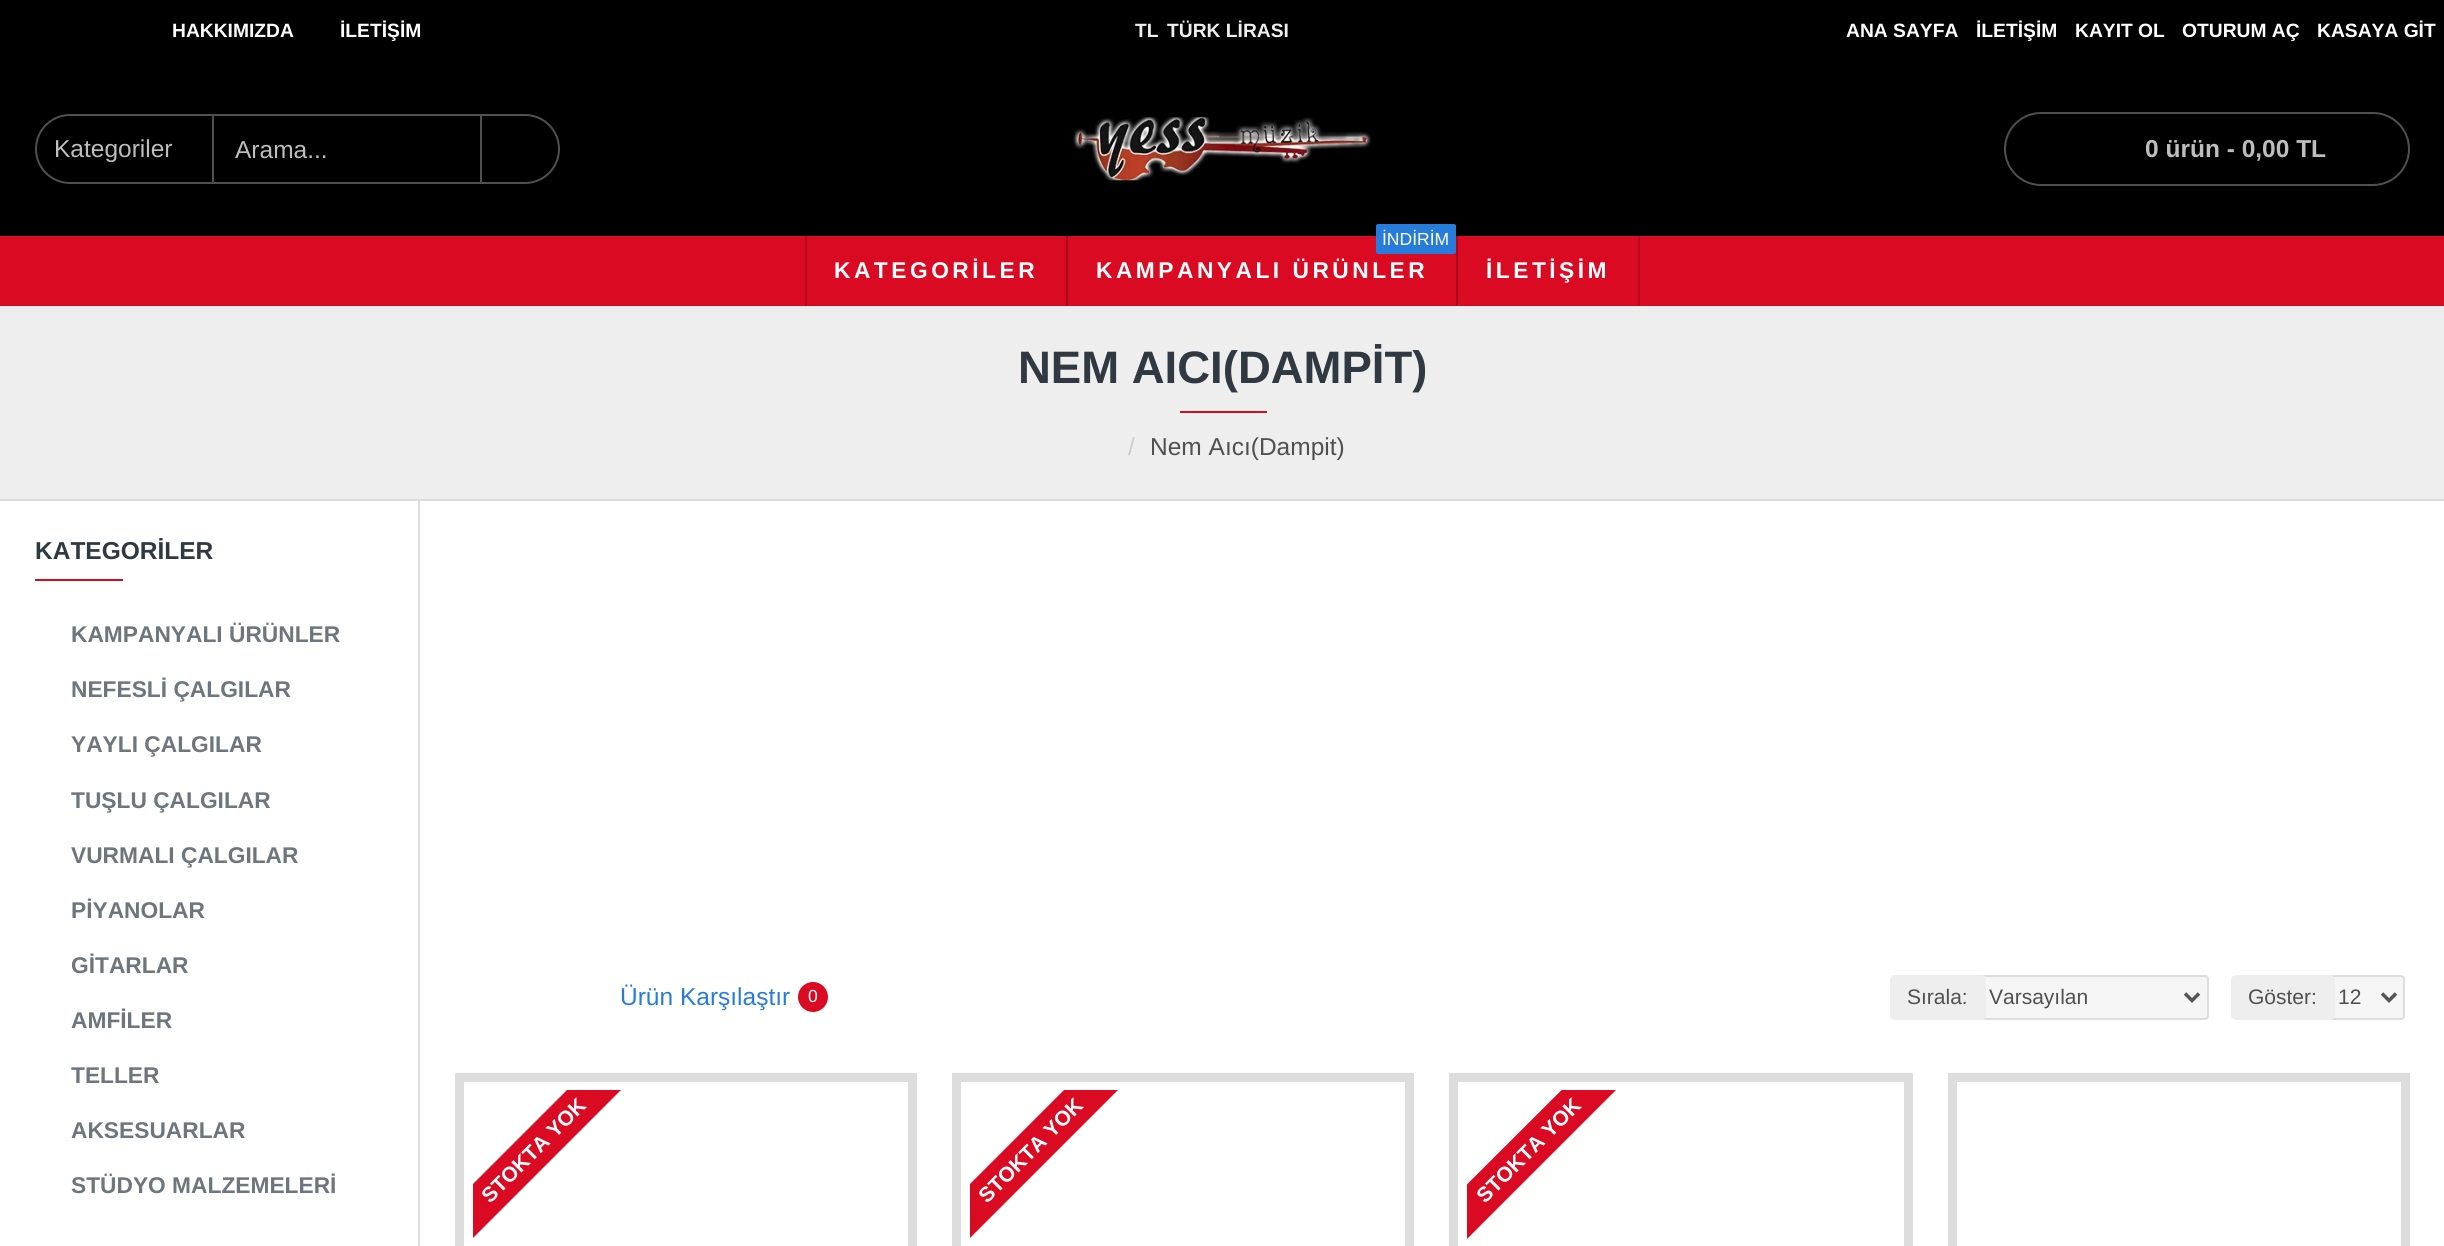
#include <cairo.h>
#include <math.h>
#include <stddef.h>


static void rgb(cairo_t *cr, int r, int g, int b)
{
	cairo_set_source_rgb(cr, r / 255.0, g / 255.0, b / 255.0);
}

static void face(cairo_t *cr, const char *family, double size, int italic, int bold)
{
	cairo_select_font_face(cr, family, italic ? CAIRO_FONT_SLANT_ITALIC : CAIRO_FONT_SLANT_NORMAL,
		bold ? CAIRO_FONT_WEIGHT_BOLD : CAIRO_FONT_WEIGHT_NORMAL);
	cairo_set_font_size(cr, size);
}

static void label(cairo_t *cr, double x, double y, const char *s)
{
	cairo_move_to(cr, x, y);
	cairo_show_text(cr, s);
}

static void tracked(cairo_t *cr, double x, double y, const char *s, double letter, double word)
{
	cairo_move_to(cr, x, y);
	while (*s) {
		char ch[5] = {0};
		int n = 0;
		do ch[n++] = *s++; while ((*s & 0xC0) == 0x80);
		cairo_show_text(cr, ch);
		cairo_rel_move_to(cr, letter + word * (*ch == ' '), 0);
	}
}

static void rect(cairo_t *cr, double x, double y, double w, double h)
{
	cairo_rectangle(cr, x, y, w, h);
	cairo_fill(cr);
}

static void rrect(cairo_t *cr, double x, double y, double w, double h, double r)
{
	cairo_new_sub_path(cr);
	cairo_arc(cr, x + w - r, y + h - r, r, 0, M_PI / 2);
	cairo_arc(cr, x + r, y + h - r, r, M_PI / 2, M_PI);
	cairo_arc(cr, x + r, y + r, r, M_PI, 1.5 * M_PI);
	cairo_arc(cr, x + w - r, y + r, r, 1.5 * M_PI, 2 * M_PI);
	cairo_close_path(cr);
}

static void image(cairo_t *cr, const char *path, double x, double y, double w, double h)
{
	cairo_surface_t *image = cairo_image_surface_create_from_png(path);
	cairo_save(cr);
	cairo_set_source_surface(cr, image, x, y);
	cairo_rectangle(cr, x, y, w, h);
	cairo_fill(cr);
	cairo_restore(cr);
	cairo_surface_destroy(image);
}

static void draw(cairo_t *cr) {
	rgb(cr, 255, 255, 255);
	cairo_paint(cr);
	rgb(cr, 0, 0, 0);
	rect(cr, 0, 0, 2444, 236);
	face(cr, "Liberation Sans", 19.25, 0, 1);
	rgb(cr, 255, 255, 255);
	label(cr, 172, 37, "HAKKIMIZDA");
	label(cr, 340, 37, "İLETİŞİM");
	rgb(cr, 238, 238, 238);
	label(cr, 1135, 37, "TL");
	label(cr, 1167, 37, "TÜRK LİRASI");
	rgb(cr, 255, 255, 255);
	label(cr, 1846, 37, "ANA SAYFA");
	label(cr, 1976, 37, "İLETİŞİM");
	label(cr, 2075, 37, "KAYIT OL");
	label(cr, 2182, 37, "OTURUM AÇ");
	label(cr, 2317, 37, "KASAYA GİT");
	rrect(cr, 36, 115, 523, 68, 34);
	rgb(cr, 80, 80, 80);
	cairo_stroke(cr);
	rect(cr, 212, 116, 2, 66);
	face(cr, "Liberation Sans", 24.5, 0, 0);
	rgb(cr, 190, 190, 190);
	label(cr, 54, 157, "Kategoriler");
	label(cr, 235, 158, "Arama...");
	rgb(cr, 80, 80, 80);
	rect(cr, 480, 116, 2, 66);
	image(cr, "image0.png", 1073, 117, 298, 64);
	rrect(cr, 2005, 113, 404, 72, 36);
	cairo_stroke(cr);
	face(cr, "Liberation Sans", 24.5, 0, 1);
	rgb(cr, 190, 190, 190);
	label(cr, 2145, 157, "0 ürün - 0,00 TL");
	rgb(cr, 218, 10, 34);
	rect(cr, 0, 236, 2444, 70);
	rgb(cr, 185, 9, 30);
	rect(cr, 1638, 236, 2, 70);
	rect(cr, 805, 236, 2, 70);
	face(cr, "Liberation Sans", 22.75, 0, 1);
	rgb(cr, 255, 255, 255);
	tracked(cr, 834, 278, "KATEGORİLER", 3.5, 0);
	rgb(cr, 168, 8, 27);
	rect(cr, 1066, 236, 2, 70);
	rgb(cr, 39, 124, 217);
	rrect(cr, 1376, 224, 80, 30, 2);
	cairo_fill(cr);
	face(cr, "Liberation Sans", 17.5, 0, 0);
	rgb(cr, 255, 255, 255);
	label(cr, 1382, 245, "İNDİRİM");
	face(cr, "Liberation Sans", 22.75, 0, 1);
	tracked(cr, 1096, 278, "KAMPANYALI ÜRÜNLER", 3.5, 0);
	rgb(cr, 168, 8, 27);
	rect(cr, 1456, 236, 2, 70);
	rgb(cr, 255, 255, 255);
	tracked(cr, 1486, 278, "İLETİŞİM", 3.5, 0);
	rgb(cr, 238, 238, 238);
	rect(cr, 0, 306, 2444, 193);
	face(cr, "Liberation Sans", 45.5, 0, 1);
	rgb(cr, 48, 56, 65);
	label(cr, 1018, 383, "NEM AICI(DAMPİT)");
	rgb(cr, 218, 10, 34);
	rect(cr, 1180, 411, 87, 2);
	rgb(cr, 221, 221, 221);
	rect(cr, 0, 499, 2444, 2);
	face(cr, "Liberation Sans", 24.5, 0, 0);
	rgb(cr, 204, 204, 204);
	label(cr, 1128, 455, "/");
	rgb(cr, 80, 80, 80);
	label(cr, 1150, 455, "Nem Aıcı(Dampit)");
	rgb(cr, 221, 221, 221);
	rect(cr, 418, 501, 2, 745);
	face(cr, "Liberation Sans", 24.5, 0, 1);
	rgb(cr, 48, 56, 65);
	label(cr, 35, 559, "KATEGORİLER");
	rgb(cr, 218, 10, 34);
	rect(cr, 35, 579, 88, 2);
	face(cr, "Liberation Sans", 22.75, 0, 1);
	rgb(cr, 109, 118, 125);
	label(cr, 71, 642, "KAMPANYALI ÜRÜNLER");
	label(cr, 71, 697, "NEFESLİ ÇALGILAR");
	label(cr, 71, 752, "YAYLI ÇALGILAR");
	label(cr, 71, 808, "TUŞLU ÇALGILAR");
	label(cr, 71, 863, "VURMALI ÇALGILAR");
	label(cr, 71, 918, "PİYANOLAR");
	label(cr, 71, 973, "GİTARLAR");
	label(cr, 71, 1028, "AMFİLER");
	label(cr, 71, 1083, "TELLER");
	label(cr, 71, 1138, "AKSESUARLAR");
	label(cr, 71, 1193, "STÜDYO MALZEMELERİ");
	face(cr, "Liberation Sans", 24.5, 0, 0);
	rgb(cr, 39, 124, 217);
	label(cr, 620, 1005, "Ürün Karşılaştır");
	rgb(cr, 218, 10, 34);
	cairo_new_path(cr);
	cairo_arc(cr, 813, 997, 15, 0, 2 * M_PI);
	cairo_fill(cr);
	face(cr, "Liberation Sans", 17.5, 0, 0);
	rgb(cr, 255, 255, 255);
	label(cr, 808, 1002, "0");
	rgb(cr, 245, 245, 245);
	rrect(cr, 1982, 976, 226, 43, 3);
	cairo_fill_preserve(cr);
	rgb(cr, 221, 221, 221);
	cairo_stroke(cr);
	rgb(cr, 238, 238, 238);
	rrect(cr, 1890, 975, 96, 45, 5);
	cairo_fill(cr);
	face(cr, "Liberation Sans", 21, 0, 0);
	rgb(cr, 80, 80, 80);
	label(cr, 1907, 1004, "Sırala:");
	cairo_new_path(cr);
	cairo_move_to(cr, 2185, 993.5);
	cairo_line_to(cr, 2192, 1000.5);
	cairo_line_to(cr, 2199, 993.5);
	rgb(cr, 85, 85, 85);
	cairo_set_line_width(cr, 3.5);
	cairo_stroke(cr);
	rgb(cr, 80, 80, 80);
	label(cr, 1989, 1004, "Varsayılan");
	rgb(cr, 245, 245, 245);
	rrect(cr, 2330, 976, 74, 43, 3);
	cairo_fill_preserve(cr);
	rgb(cr, 221, 221, 221);
	cairo_set_line_width(cr, 2);
	cairo_stroke(cr);
	rgb(cr, 238, 238, 238);
	rrect(cr, 2231, 975, 104, 45, 5);
	cairo_fill(cr);
	rgb(cr, 80, 80, 80);
	label(cr, 2248, 1004, "Göster:");
	cairo_new_path(cr);
	cairo_move_to(cr, 2382, 993.5);
	cairo_line_to(cr, 2389, 1000.5);
	cairo_line_to(cr, 2396, 993.5);
	rgb(cr, 85, 85, 85);
	cairo_set_line_width(cr, 3.5);
	cairo_stroke(cr);
	rgb(cr, 80, 80, 80);
	label(cr, 2338, 1004, "12");
	cairo_rectangle(cr, 459.5, 1077.5, 453, 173);
	rgb(cr, 221, 221, 221);
	cairo_set_line_width(cr, 9);
	cairo_stroke(cr);
	cairo_save(cr);
	cairo_rectangle(cr, 473, 1090, 427, 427);
	cairo_clip(cr);
	rgb(cr, 218, 10, 34);
	cairo_new_path(cr);
	cairo_move_to(cr, 335, 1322);
	cairo_line_to(cr, 706, 951);
	cairo_line_to(cr, 733, 978);
	cairo_line_to(cr, 362, 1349);
	cairo_close_path(cr);
	cairo_fill(cr);
	cairo_restore(cr);
	face(cr, "Liberation Sans", 21, 0, 1);
	rgb(cr, 255, 255, 255);
	cairo_save(cr);
	cairo_translate(cr, 490, 1204);
	cairo_rotate(cr, -45 * M_PI / 180);
	label(cr, 0, 0, "STOKTA YOK");
	cairo_restore(cr);
	cairo_rectangle(cr, 956.5, 1077.5, 453, 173);
	rgb(cr, 221, 221, 221);
	cairo_stroke(cr);
	cairo_save(cr);
	cairo_rectangle(cr, 970, 1090, 427, 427);
	cairo_clip(cr);
	rgb(cr, 218, 10, 34);
	cairo_new_path(cr);
	cairo_move_to(cr, 832, 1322);
	cairo_line_to(cr, 1203, 951);
	cairo_line_to(cr, 1230, 978);
	cairo_line_to(cr, 859, 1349);
	cairo_close_path(cr);
	cairo_fill(cr);
	cairo_restore(cr);
	rgb(cr, 255, 255, 255);
	cairo_save(cr);
	cairo_translate(cr, 987, 1204);
	cairo_rotate(cr, -45 * M_PI / 180);
	label(cr, 0, 0, "STOKTA YOK");
	cairo_restore(cr);
	cairo_rectangle(cr, 1453.5, 1077.5, 455, 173);
	rgb(cr, 221, 221, 221);
	cairo_stroke(cr);
	cairo_save(cr);
	cairo_rectangle(cr, 1467, 1090, 428, 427);
	cairo_clip(cr);
	rgb(cr, 218, 10, 34);
	cairo_new_path(cr);
	cairo_move_to(cr, 1329, 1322);
	cairo_line_to(cr, 1701, 951);
	cairo_line_to(cr, 1728, 978);
	cairo_line_to(cr, 1357, 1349);
	cairo_close_path(cr);
	cairo_fill(cr);
	cairo_restore(cr);
	rgb(cr, 255, 255, 255);
	cairo_save(cr);
	cairo_translate(cr, 1485, 1204);
	cairo_rotate(cr, -45 * M_PI / 180);
	label(cr, 0, 0, "STOKTA YOK");
	cairo_restore(cr);
	cairo_rectangle(cr, 1952.5, 1077.5, 453, 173);
	rgb(cr, 221, 221, 221);
	cairo_stroke(cr);
}

int main(void) {
	cairo_surface_t *surface = cairo_image_surface_create(CAIRO_FORMAT_RGB24, 2444, 1246);
	cairo_t *cr = cairo_create(surface);
	cairo_font_options_t *options = cairo_font_options_create();
	cairo_font_options_set_hint_metrics(options, CAIRO_HINT_METRICS_OFF);
	cairo_font_options_set_hint_style(options, CAIRO_HINT_STYLE_NONE);
	cairo_set_font_options(cr, options);
	cairo_set_miter_limit(cr, 4);
	draw(cr);
	cairo_surface_write_to_png(surface, "render.png");
	cairo_font_options_destroy(options);
	cairo_destroy(cr);
	cairo_surface_destroy(surface);
	return 0;
}
